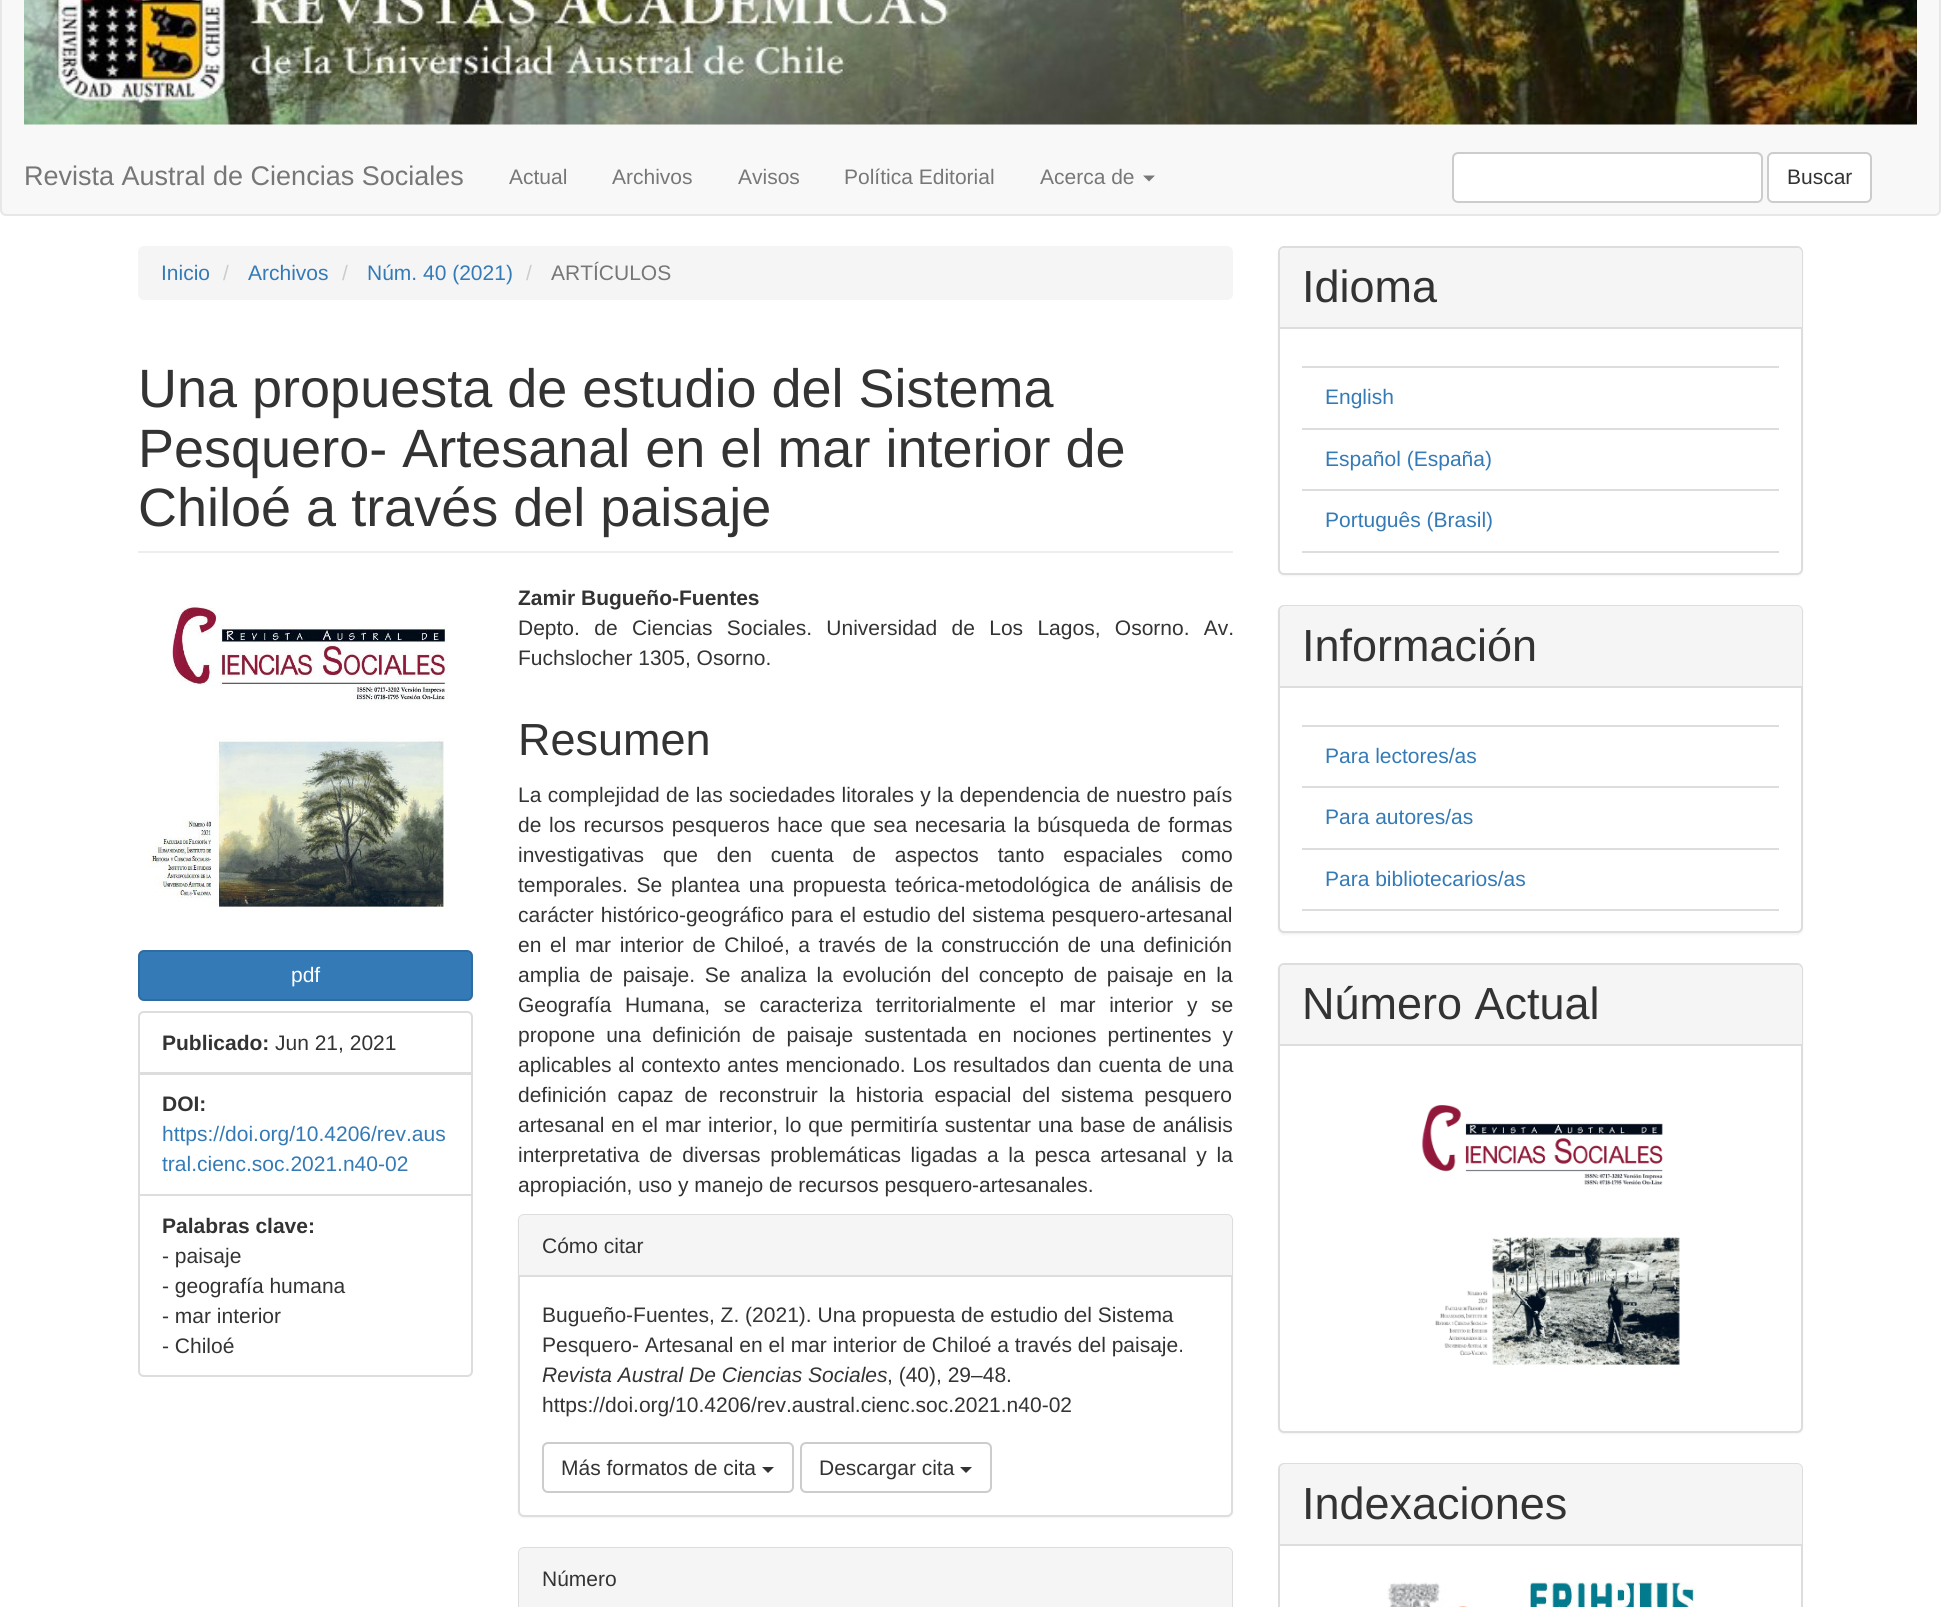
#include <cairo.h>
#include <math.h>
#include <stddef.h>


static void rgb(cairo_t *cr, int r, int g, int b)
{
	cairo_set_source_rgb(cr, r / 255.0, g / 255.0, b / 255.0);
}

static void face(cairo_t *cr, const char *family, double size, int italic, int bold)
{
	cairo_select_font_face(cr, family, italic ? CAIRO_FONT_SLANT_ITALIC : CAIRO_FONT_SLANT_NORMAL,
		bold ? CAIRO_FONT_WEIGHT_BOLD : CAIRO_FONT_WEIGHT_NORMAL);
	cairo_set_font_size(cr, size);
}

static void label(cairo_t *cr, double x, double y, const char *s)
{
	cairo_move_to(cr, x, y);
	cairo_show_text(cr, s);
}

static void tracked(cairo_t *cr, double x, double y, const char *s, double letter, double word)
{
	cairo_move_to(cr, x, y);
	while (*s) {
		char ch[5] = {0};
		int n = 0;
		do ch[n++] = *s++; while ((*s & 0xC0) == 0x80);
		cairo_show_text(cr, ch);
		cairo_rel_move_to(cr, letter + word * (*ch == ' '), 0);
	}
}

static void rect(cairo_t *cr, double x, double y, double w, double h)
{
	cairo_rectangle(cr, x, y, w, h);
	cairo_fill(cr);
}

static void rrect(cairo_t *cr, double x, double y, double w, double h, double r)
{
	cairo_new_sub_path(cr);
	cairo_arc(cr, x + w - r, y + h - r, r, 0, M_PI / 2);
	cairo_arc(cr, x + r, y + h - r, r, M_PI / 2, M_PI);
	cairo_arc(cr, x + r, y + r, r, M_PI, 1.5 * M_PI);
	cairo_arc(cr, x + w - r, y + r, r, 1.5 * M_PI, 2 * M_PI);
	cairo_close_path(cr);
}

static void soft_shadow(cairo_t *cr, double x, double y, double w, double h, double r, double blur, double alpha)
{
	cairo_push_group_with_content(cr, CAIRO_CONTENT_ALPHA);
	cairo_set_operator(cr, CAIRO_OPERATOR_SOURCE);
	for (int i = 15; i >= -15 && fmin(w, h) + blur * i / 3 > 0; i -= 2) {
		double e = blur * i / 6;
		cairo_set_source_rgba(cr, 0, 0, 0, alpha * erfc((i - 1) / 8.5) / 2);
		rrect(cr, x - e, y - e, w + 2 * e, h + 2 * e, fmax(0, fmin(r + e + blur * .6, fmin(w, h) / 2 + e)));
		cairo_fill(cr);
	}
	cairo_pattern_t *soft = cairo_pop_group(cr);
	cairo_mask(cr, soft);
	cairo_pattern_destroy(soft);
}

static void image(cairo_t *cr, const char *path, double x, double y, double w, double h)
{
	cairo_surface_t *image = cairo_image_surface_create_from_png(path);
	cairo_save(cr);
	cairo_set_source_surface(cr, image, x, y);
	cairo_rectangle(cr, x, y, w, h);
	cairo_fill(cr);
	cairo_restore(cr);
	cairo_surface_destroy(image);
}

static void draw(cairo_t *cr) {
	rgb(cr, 255, 255, 255);
	cairo_paint(cr);
	rgb(cr, 248, 248, 248);
	rrect(cr, 1, -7, 1939, 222, 5);
	cairo_fill_preserve(cr);
	rgb(cr, 231, 231, 231);
	cairo_stroke(cr);
	image(cr, "image0.png", 24, 0, 1893, 125);
	face(cr, "Liberation Sans", 27, 0, 0);
	rgb(cr, 119, 119, 119);
	label(cr, 24, 185, "Revista Austral de Ciencias Sociales");
	face(cr, "Liberation Sans", 21, 0, 0);
	label(cr, 509, 184, "Actual");
	label(cr, 612, 184, "Archivos");
	label(cr, 738, 184, "Avisos");
	label(cr, 844, 184, "Política Editorial");
	label(cr, 1040, 184, "Acerca de");
	cairo_new_path(cr);
	cairo_move_to(cr, 1143, 175.5);
	cairo_line_to(cr, 1155, 175.5);
	cairo_line_to(cr, 1149, 181.5);
	cairo_close_path(cr);
	cairo_fill(cr);
	rgb(cr, 255, 255, 255);
	rrect(cr, 1452, 152, 311, 51, 6);
	cairo_fill(cr);
	rgb(cr, 236, 236, 236);
	cairo_new_path(cr);
	cairo_move_to(cr, 1458, 154);
	cairo_line_to(cr, 1756, 154);
	cairo_curve_to(cr, 1759, 154, 1761, 157, 1761, 159);
	cairo_curve_to(cr, 1761, 156, 1759, 153, 1756, 153);
	cairo_line_to(cr, 1459, 153);
	cairo_curve_to(cr, 1456, 153, 1454, 156, 1454, 159);
	cairo_curve_to(cr, 1454, 157, 1456, 154, 1458, 154);
	cairo_close_path(cr);
	cairo_fill(cr);
	rrect(cr, 1453, 153, 309, 49, 5);
	rgb(cr, 204, 204, 204);
	cairo_stroke(cr);
	rgb(cr, 255, 255, 255);
	rrect(cr, 1768, 153, 103, 49, 5);
	cairo_fill_preserve(cr);
	rgb(cr, 204, 204, 204);
	cairo_stroke(cr);
	rgb(cr, 51, 51, 51);
	label(cr, 1787, 184, "Buscar");
	rgb(cr, 245, 245, 245);
	rrect(cr, 138, 246, 1095, 54, 6);
	cairo_fill(cr);
	rgb(cr, 51, 122, 183);
	label(cr, 161, 280, "Inicio");
	rgb(cr, 204, 204, 204);
	label(cr, 223, 280, "/");
	rgb(cr, 51, 122, 183);
	label(cr, 248, 280, "Archivos");
	rgb(cr, 204, 204, 204);
	label(cr, 342, 280, "/");
	rgb(cr, 51, 122, 183);
	label(cr, 367, 280, "Núm. 40 (2021)");
	rgb(cr, 204, 204, 204);
	label(cr, 526, 280, "/");
	rgb(cr, 119, 119, 119);
	label(cr, 551, 280, "ARTÍCULOS");
	rgb(cr, 238, 238, 238);
	rect(cr, 138, 551, 1095, 2);
	face(cr, "Liberation Sans", 54, 0, 0);
	rgb(cr, 51, 51, 51);
	label(cr, 138, 407, "Una propuesta de estudio del Sistema");
	label(cr, 138, 467, "Pesquero- Artesanal en el mar interior de");
	label(cr, 138, 526, "Chiloé a través del paisaje");
	image(cr, "image1.png", 148, 603, 301, 308);
	rgb(cr, 51, 122, 183);
	rrect(cr, 139, 951, 333, 49, 5);
	cairo_fill_preserve(cr);
	rgb(cr, 46, 109, 164);
	cairo_stroke(cr);
	face(cr, "Liberation Sans", 21, 0, 0);
	rgb(cr, 255, 255, 255);
	label(cr, 291, 982, "pdf");
	cairo_new_path(cr);
	cairo_move_to(cr, 144, 1012);
	cairo_line_to(cr, 467, 1012);
	cairo_curve_to(cr, 470, 1012, 472, 1014, 472, 1017);
	cairo_line_to(cr, 472, 1073);
	cairo_line_to(cr, 139, 1073);
	cairo_line_to(cr, 139, 1017);
	cairo_curve_to(cr, 139, 1014, 141, 1012, 144, 1012);
	cairo_close_path(cr);
	rgb(cr, 221, 221, 221);
	cairo_stroke(cr);
	face(cr, "Liberation Sans", 21, 0, 1);
	rgb(cr, 51, 51, 51);
	label(cr, 162, 1050, "Publicado:");
	face(cr, "Liberation Sans", 21, 0, 0);
	label(cr, 275, 1050, "Jun 21, 2021");
	cairo_rectangle(cr, 139, 1074, 333, 121);
	rgb(cr, 221, 221, 221);
	cairo_stroke(cr);
	face(cr, "Liberation Sans", 21, 0, 1);
	rgb(cr, 51, 51, 51);
	label(cr, 162, 1111, "DOI:");
	face(cr, "Liberation Sans", 21, 0, 0);
	rgb(cr, 51, 122, 183);
	label(cr, 162, 1141, "https://doi.org/10.4206/rev.aus");
	label(cr, 162, 1171, "tral.cienc.soc.2021.n40-02");
	rgb(cr, 255, 255, 255);
	cairo_new_path(cr);
	cairo_move_to(cr, 139, 1195);
	cairo_line_to(cr, 472, 1195);
	cairo_line_to(cr, 472, 1371);
	cairo_curve_to(cr, 472, 1374, 470, 1376, 467, 1376);
	cairo_line_to(cr, 144, 1376);
	cairo_curve_to(cr, 141, 1376, 139, 1374, 139, 1371);
	cairo_close_path(cr);
	cairo_fill_preserve(cr);
	rgb(cr, 221, 221, 221);
	cairo_stroke(cr);
	face(cr, "Liberation Sans", 21, 0, 1);
	rgb(cr, 51, 51, 51);
	label(cr, 162, 1233, "Palabras clave:");
	face(cr, "Liberation Sans", 21, 0, 0);
	label(cr, 162, 1263, "- paisaje");
	label(cr, 162, 1293, "- geografía humana");
	label(cr, 162, 1323, "- mar interior");
	label(cr, 162, 1353, "- Chiloé");
	face(cr, "Liberation Sans", 21, 0, 1);
	label(cr, 518, 605, "Zamir Bugueño-Fuentes");
	face(cr, "Liberation Sans", 21, 0, 0);
	tracked(cr, 518, 635, "Depto. de Ciencias Sociales. Universidad de Los Lagos, Osorno. Av.", 0, 8.5);
	label(cr, 518, 665, "Fuchslocher 1305, Osorno.");
	face(cr, "Liberation Sans", 45, 0, 0);
	label(cr, 518, 755, "Resumen");
	face(cr, "Liberation Sans", 21, 0, 0);
	tracked(cr, 518, 802, "La complejidad de las sociedades litorales y la dependencia de nuestro país", 0, 0.5);
	tracked(cr, 518, 832, "de los recursos pesqueros hace que sea necesaria la búsqueda de formas", 0, 1.8);
	tracked(cr, 518, 862, "investigativas que den cuenta de aspectos tanto espaciales como", 0, 13);
	tracked(cr, 518, 892, "temporales. Se plantea una propuesta teórica-metodológica de análisis de", 0, 3);
	tracked(cr, 518, 922, "carácter histórico-geográfico para el estudio del sistema pesquero-artesanal", 0, 1);
	tracked(cr, 518, 952, "en el mar interior de Chiloé, a través de la construcción de una definición", 0, 2.75);
	tracked(cr, 518, 982, "amplia de paisaje. Se analiza la evolución del concepto de paisaje en la", 0, 3.9);
	tracked(cr, 518, 1012, "Geografía Humana, se caracteriza territorialmente el mar interior y se", 0, 7.75);
	tracked(cr, 518, 1042, "propone una definición de paisaje sustentada en nociones pertinentes y", 0, 5.25);
	tracked(cr, 518, 1072, "aplicables al contexto antes mencionado. Los resultados dan cuenta de una", 0, 0.9);
	tracked(cr, 518, 1102, "definición capaz de reconstruir la historia espacial del sistema pesquero", 0, 5);
	tracked(cr, 518, 1132, "artesanal en el mar interior, lo que permitiría sustentar una base de análisis", 0, 1.1);
	tracked(cr, 518, 1162, "interpretativa de diversas problemáticas ligadas a la pesca artesanal y la", 0, 3.9);
	label(cr, 518, 1192, "apropiación, uso y manejo de recursos pesquero-artesanales.");
	rgb(cr, 0, 0, 0);
	soft_shadow(cr, 518, 1215, 715, 303, 6, 1, 0.05);
	rgb(cr, 255, 255, 255);
	rrect(cr, 519, 1215, 713, 301, 5);
	cairo_fill_preserve(cr);
	rgb(cr, 221, 221, 221);
	cairo_stroke(cr);
	rgb(cr, 245, 245, 245);
	cairo_new_path(cr);
	cairo_move_to(cr, 524, 1215);
	cairo_line_to(cr, 1227, 1215);
	cairo_curve_to(cr, 1230, 1215, 1232, 1217, 1232, 1220);
	cairo_line_to(cr, 1232, 1277);
	cairo_line_to(cr, 519, 1277);
	cairo_line_to(cr, 519, 1220);
	cairo_curve_to(cr, 519, 1217, 521, 1215, 524, 1215);
	cairo_close_path(cr);
	cairo_fill(cr);
	rgb(cr, 221, 221, 221);
	rect(cr, 519, 1275, 713, 2);
	rgb(cr, 51, 51, 51);
	label(cr, 542, 1253, "Cómo citar");
	label(cr, 542, 1322, "Bugueño-Fuentes, Z. (2021). Una propuesta de estudio del Sistema");
	label(cr, 542, 1352, "Pesquero- Artesanal en el mar interior de Chiloé a través del paisaje.");
	face(cr, "Liberation Sans", 21, 1, 0);
	label(cr, 542, 1382, "Revista Austral De Ciencias Sociales");
	face(cr, "Liberation Sans", 21, 0, 0);
	label(cr, 887, 1382, ", (40), 29–48.");
	label(cr, 542, 1412, "https://doi.org/10.4206/rev.austral.cienc.soc.2021.n40-02");
	rrect(cr, 543, 1443, 250, 49, 5);
	rgb(cr, 204, 204, 204);
	cairo_stroke(cr);
	rgb(cr, 51, 51, 51);
	label(cr, 561, 1475, "Más formatos de cita");
	cairo_new_path(cr);
	cairo_move_to(cr, 762, 1467);
	cairo_line_to(cr, 774, 1467);
	cairo_line_to(cr, 768, 1473);
	cairo_close_path(cr);
	cairo_fill(cr);
	rrect(cr, 801, 1443, 190, 49, 5);
	rgb(cr, 204, 204, 204);
	cairo_stroke(cr);
	rgb(cr, 51, 51, 51);
	label(cr, 819, 1475, "Descargar cita");
	cairo_new_path(cr);
	cairo_move_to(cr, 960, 1467);
	cairo_line_to(cr, 972, 1467);
	cairo_line_to(cr, 966, 1473);
	cairo_close_path(cr);
	cairo_fill(cr);
	rrect(cr, 519, 1548, 713, 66, 5);
	rgb(cr, 221, 221, 221);
	cairo_stroke(cr);
	rgb(cr, 245, 245, 245);
	cairo_new_path(cr);
	cairo_move_to(cr, 524, 1548);
	cairo_line_to(cr, 1227, 1548);
	cairo_curve_to(cr, 1230, 1548, 1232, 1550, 1232, 1553);
	cairo_line_to(cr, 1232, 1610);
	cairo_line_to(cr, 519, 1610);
	cairo_line_to(cr, 519, 1553);
	cairo_curve_to(cr, 519, 1550, 521, 1548, 524, 1548);
	cairo_close_path(cr);
	cairo_fill(cr);
	rgb(cr, 51, 51, 51);
	label(cr, 542, 1586, "Número");
	rgb(cr, 0, 0, 0);
	soft_shadow(cr, 1278, 248, 525, 328, 6, 1, 0.05);
	rgb(cr, 255, 255, 255);
	rrect(cr, 1279, 247, 523, 327, 5);
	cairo_fill_preserve(cr);
	rgb(cr, 221, 221, 221);
	cairo_stroke(cr);
	rgb(cr, 245, 245, 245);
	cairo_new_path(cr);
	cairo_move_to(cr, 1285, 248);
	cairo_line_to(cr, 1797, 248);
	cairo_curve_to(cr, 1800, 248, 1802, 250, 1802, 253);
	cairo_line_to(cr, 1802, 329);
	cairo_line_to(cr, 1280, 329);
	cairo_line_to(cr, 1280, 253);
	cairo_curve_to(cr, 1280, 250, 1282, 248, 1285, 248);
	cairo_close_path(cr);
	cairo_fill(cr);
	rgb(cr, 221, 221, 221);
	rect(cr, 1280, 327, 522, 2);
	face(cr, "Liberation Sans", 45, 0, 0);
	rgb(cr, 51, 51, 51);
	label(cr, 1302, 302, "Idioma");
	rgb(cr, 221, 221, 221);
	rect(cr, 1302, 366, 477, 2);
	face(cr, "Liberation Sans", 21, 0, 0);
	rgb(cr, 51, 122, 183);
	label(cr, 1325, 404, "English");
	rgb(cr, 221, 221, 221);
	rect(cr, 1302, 428, 477, 2);
	rect(cr, 1302, 489, 477, 2);
	rgb(cr, 51, 122, 183);
	label(cr, 1325, 466, "Español (España)");
	rgb(cr, 221, 221, 221);
	rect(cr, 1302, 551, 477, 2);
	rgb(cr, 51, 122, 183);
	label(cr, 1325, 527, "Português (Brasil)");
	rgb(cr, 0, 0, 0);
	soft_shadow(cr, 1278, 606, 525, 329, 6, 1, 0.05);
	rgb(cr, 255, 255, 255);
	rrect(cr, 1279, 606, 523, 326, 5);
	cairo_fill_preserve(cr);
	rgb(cr, 221, 221, 221);
	cairo_stroke(cr);
	rgb(cr, 245, 245, 245);
	cairo_new_path(cr);
	cairo_move_to(cr, 1285, 606);
	cairo_line_to(cr, 1797, 606);
	cairo_curve_to(cr, 1800, 606, 1802, 608, 1802, 611);
	cairo_line_to(cr, 1802, 687);
	cairo_line_to(cr, 1280, 687);
	cairo_line_to(cr, 1280, 611);
	cairo_curve_to(cr, 1280, 608, 1282, 606, 1285, 606);
	cairo_close_path(cr);
	cairo_fill(cr);
	rgb(cr, 221, 221, 221);
	rect(cr, 1280, 686, 522, 2);
	face(cr, "Liberation Sans", 45, 0, 0);
	rgb(cr, 51, 51, 51);
	label(cr, 1302, 661, "Información");
	rgb(cr, 221, 221, 221);
	rect(cr, 1302, 725, 477, 2);
	rect(cr, 1302, 786, 477, 2);
	face(cr, "Liberation Sans", 21, 0, 0);
	rgb(cr, 51, 122, 183);
	label(cr, 1325, 763, "Para lectores/as");
	label(cr, 1325, 824, "Para autores/as");
	rgb(cr, 221, 221, 221);
	rect(cr, 1302, 848, 477, 2);
	rect(cr, 1302, 909, 477, 2);
	rgb(cr, 51, 122, 183);
	label(cr, 1325, 886, "Para bibliotecarios/as");
	rgb(cr, 0, 0, 0);
	soft_shadow(cr, 1278, 965, 525, 469, 6, 1, 0.05);
	rgb(cr, 255, 255, 255);
	rrect(cr, 1279, 964, 523, 468, 5);
	cairo_fill_preserve(cr);
	rgb(cr, 221, 221, 221);
	cairo_stroke(cr);
	rgb(cr, 245, 245, 245);
	cairo_new_path(cr);
	cairo_move_to(cr, 1285, 965);
	cairo_line_to(cr, 1797, 965);
	cairo_curve_to(cr, 1800, 965, 1802, 967, 1802, 970);
	cairo_line_to(cr, 1802, 1046);
	cairo_line_to(cr, 1280, 1046);
	cairo_line_to(cr, 1280, 970);
	cairo_curve_to(cr, 1280, 967, 1282, 965, 1285, 965);
	cairo_close_path(cr);
	cairo_fill(cr);
	rgb(cr, 221, 221, 221);
	rect(cr, 1280, 1044, 522, 2);
	face(cr, "Liberation Sans", 45, 0, 0);
	rgb(cr, 51, 51, 51);
	label(cr, 1302, 1019, "Número Actual");
	image(cr, "image2.png", 1421, 1105, 259, 260);
	rrect(cr, 1279, 1464, 523, 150, 5);
	rgb(cr, 221, 221, 221);
	cairo_stroke(cr);
	rgb(cr, 245, 245, 245);
	cairo_new_path(cr);
	cairo_move_to(cr, 1285, 1464);
	cairo_line_to(cr, 1797, 1464);
	cairo_curve_to(cr, 1800, 1464, 1802, 1466, 1802, 1469);
	cairo_line_to(cr, 1802, 1545);
	cairo_line_to(cr, 1280, 1545);
	cairo_line_to(cr, 1280, 1469);
	cairo_curve_to(cr, 1280, 1466, 1282, 1464, 1285, 1464);
	cairo_close_path(cr);
	cairo_fill(cr);
	rgb(cr, 221, 221, 221);
	rect(cr, 1280, 1544, 522, 2);
	rgb(cr, 51, 51, 51);
	label(cr, 1302, 1519, "Indexaciones");
	image(cr, "image3.png", 1387, 1582, 80, 25);
	image(cr, "image4.png", 1530, 1582, 164, 25);
}

int main(void) {
	cairo_surface_t *surface = cairo_image_surface_create(CAIRO_FORMAT_RGB24, 1941, 1607);
	cairo_t *cr = cairo_create(surface);
	cairo_font_options_t *options = cairo_font_options_create();
	cairo_font_options_set_hint_metrics(options, CAIRO_HINT_METRICS_OFF);
	cairo_font_options_set_hint_style(options, CAIRO_HINT_STYLE_NONE);
	cairo_set_font_options(cr, options);
	cairo_set_miter_limit(cr, 4);
	draw(cr);
	cairo_surface_write_to_png(surface, "render.png");
	cairo_font_options_destroy(options);
	cairo_destroy(cr);
	cairo_surface_destroy(surface);
	return 0;
}
